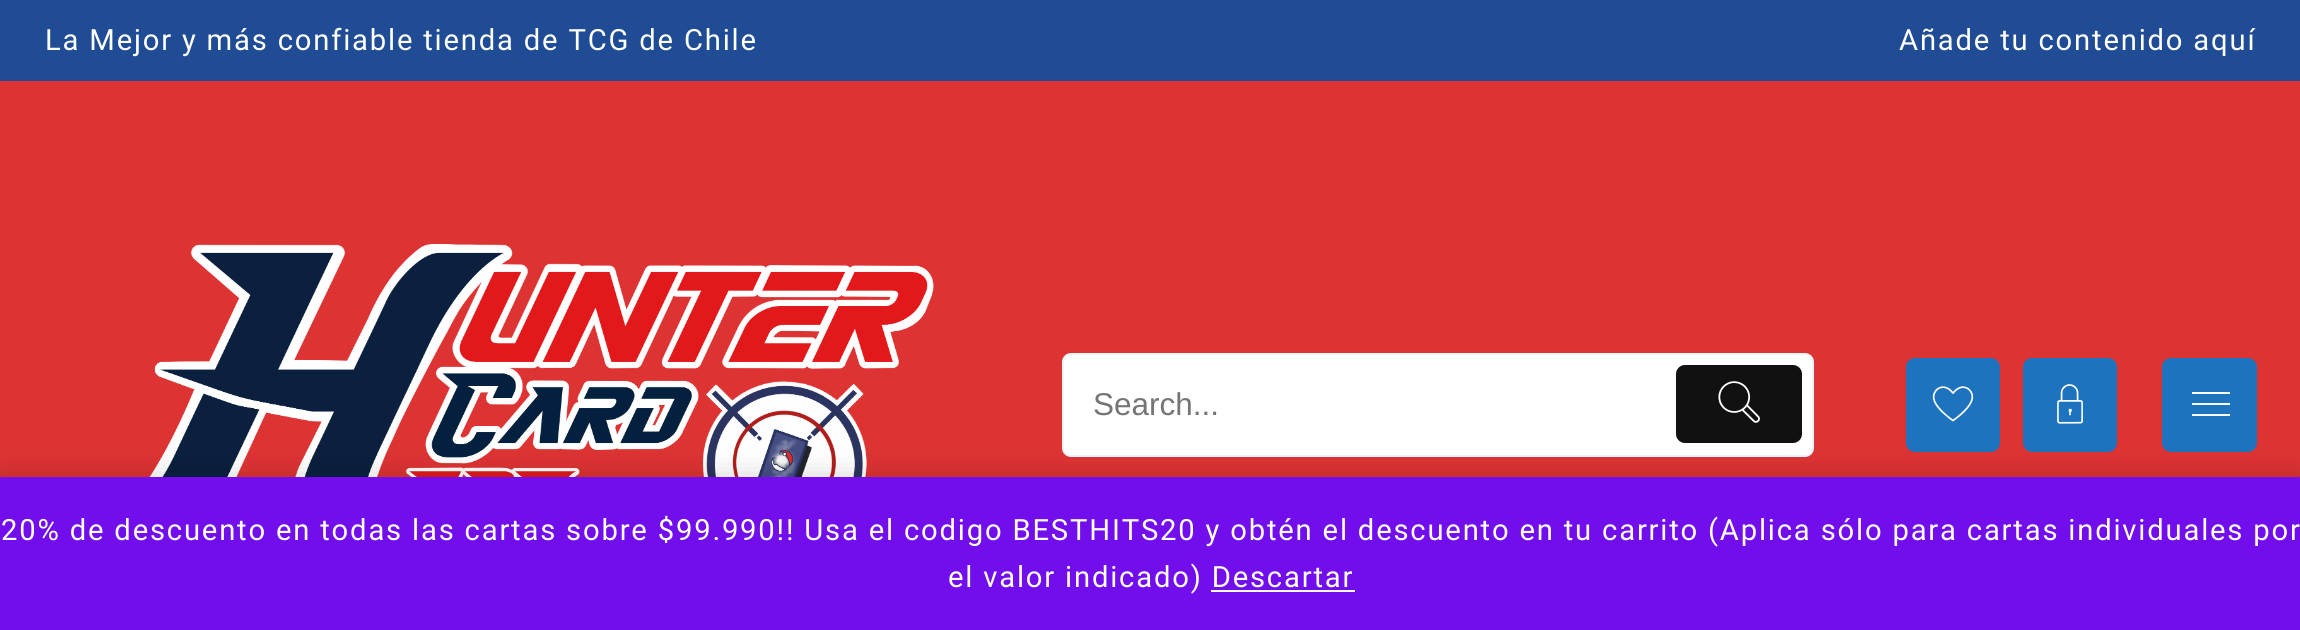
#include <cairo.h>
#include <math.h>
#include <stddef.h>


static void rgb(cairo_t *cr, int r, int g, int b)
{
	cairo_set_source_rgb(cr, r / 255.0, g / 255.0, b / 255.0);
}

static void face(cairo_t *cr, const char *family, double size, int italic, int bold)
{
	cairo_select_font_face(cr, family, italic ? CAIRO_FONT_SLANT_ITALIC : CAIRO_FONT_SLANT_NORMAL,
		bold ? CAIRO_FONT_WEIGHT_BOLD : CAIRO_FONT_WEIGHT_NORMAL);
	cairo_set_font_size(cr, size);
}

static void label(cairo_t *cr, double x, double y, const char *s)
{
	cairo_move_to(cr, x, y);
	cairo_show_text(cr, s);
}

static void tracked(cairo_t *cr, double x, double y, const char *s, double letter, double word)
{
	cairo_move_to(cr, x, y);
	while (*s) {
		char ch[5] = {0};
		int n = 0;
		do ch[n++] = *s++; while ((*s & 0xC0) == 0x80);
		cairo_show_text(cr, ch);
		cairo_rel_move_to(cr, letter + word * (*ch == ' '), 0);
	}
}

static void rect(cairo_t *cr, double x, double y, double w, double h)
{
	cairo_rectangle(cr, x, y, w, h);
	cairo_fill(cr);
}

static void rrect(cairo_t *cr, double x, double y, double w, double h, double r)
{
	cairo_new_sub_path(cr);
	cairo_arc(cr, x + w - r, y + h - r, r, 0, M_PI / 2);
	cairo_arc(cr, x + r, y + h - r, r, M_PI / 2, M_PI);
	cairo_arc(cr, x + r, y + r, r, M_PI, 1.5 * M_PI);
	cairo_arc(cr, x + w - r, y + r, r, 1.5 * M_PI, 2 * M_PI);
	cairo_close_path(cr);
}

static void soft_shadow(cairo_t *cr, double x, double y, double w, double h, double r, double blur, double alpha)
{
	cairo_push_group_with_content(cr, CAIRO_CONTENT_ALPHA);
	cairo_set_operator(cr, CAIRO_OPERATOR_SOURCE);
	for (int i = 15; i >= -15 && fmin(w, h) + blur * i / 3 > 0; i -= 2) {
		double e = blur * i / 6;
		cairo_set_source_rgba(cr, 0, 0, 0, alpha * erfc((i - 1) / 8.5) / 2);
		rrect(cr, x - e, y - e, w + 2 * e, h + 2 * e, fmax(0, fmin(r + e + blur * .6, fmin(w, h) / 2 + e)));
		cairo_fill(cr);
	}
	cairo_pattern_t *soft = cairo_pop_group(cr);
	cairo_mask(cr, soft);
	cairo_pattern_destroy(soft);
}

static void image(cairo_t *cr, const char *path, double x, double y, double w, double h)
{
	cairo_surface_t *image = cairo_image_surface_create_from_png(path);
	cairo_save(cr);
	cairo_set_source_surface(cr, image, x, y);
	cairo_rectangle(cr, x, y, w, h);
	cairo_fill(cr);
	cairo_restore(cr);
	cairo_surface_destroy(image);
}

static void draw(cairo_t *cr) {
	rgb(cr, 31, 76, 148);
	cairo_paint(cr);
	face(cr, "Roboto", 29.25, 0, 0);
	rgb(cr, 255, 255, 255);
	tracked(cr, 45, 50, "La Mejor y más confiable tienda de TCG de Chile", 1.8, 0);
	tracked(cr, 1899, 50, "Añade tu contenido aquí", 1.8, 0);
	rgb(cr, 221, 51, 51);
	rect(cr, 0, 81, 2300, 396);
	image(cr, "image0.png", 149, 244, 785, 233);
	rgb(cr, 255, 255, 255);
	rrect(cr, 1063, 354, 750, 102, 8);
	cairo_fill_preserve(cr);
	rgb(cr, 231, 245, 255);
	cairo_stroke(cr);
	face(cr, "Liberation Sans", 31.5, 0, 0);
	rgb(cr, 117, 117, 117);
	label(cr, 1093, 415, "Search...");
	rgb(cr, 17, 17, 17);
	rrect(cr, 1676, 365, 126, 78, 9);
	cairo_fill(cr);
	image(cr, "image1.png", 1718, 381, 42, 42);
	rgb(cr, 30, 115, 190);
	rrect(cr, 1906, 358, 94, 94, 9);
	cairo_fill(cr);
	image(cr, "image2.png", 1932, 386, 42, 36);
	rrect(cr, 2023, 358, 94, 94, 9);
	cairo_fill(cr);
	image(cr, "image3.png", 2057, 384, 26, 40);
	rrect(cr, 2162, 358, 95, 94, 9);
	cairo_fill(cr);
	rgb(cr, 255, 255, 255);
	rect(cr, 2192, 392, 38, 2);
	rect(cr, 2192, 403, 38, 2);
	rect(cr, 2192, 414, 38, 2);
	rgb(cr, 0, 0, 0);
	soft_shadow(cr, 0, 479, 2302, 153, 0, 14.5, 0.2);
	rgb(cr, 114, 14, 236);
	rect(cr, 0, 477, 2300, 153);
	face(cr, "Roboto", 29.25, 0, 0);
	rgb(cr, 255, 255, 255);
	tracked(cr, 1, 540, "20% de descuento en todas las cartas sobre $99.990!! Usa el codigo BESTHITS20 y obtén el descuento en tu carrito (Aplica sólo para cartas individuales por", 1.8, 0);
	tracked(cr, 948, 587, "el valor indicado) Descartar", 1.8, 0);
	rgb(cr, 252, 251, 254);
	rect(cr, 1211, 590, 144, 2);
}

int main(void) {
	cairo_surface_t *surface = cairo_image_surface_create(CAIRO_FORMAT_RGB24, 2300, 630);
	cairo_t *cr = cairo_create(surface);
	cairo_font_options_t *options = cairo_font_options_create();
	cairo_font_options_set_hint_metrics(options, CAIRO_HINT_METRICS_OFF);
	cairo_font_options_set_hint_style(options, CAIRO_HINT_STYLE_NONE);
	cairo_set_font_options(cr, options);
	cairo_set_miter_limit(cr, 4);
	draw(cr);
	cairo_surface_write_to_png(surface, "render.png");
	cairo_font_options_destroy(options);
	cairo_destroy(cr);
	cairo_surface_destroy(surface);
	return 0;
}
